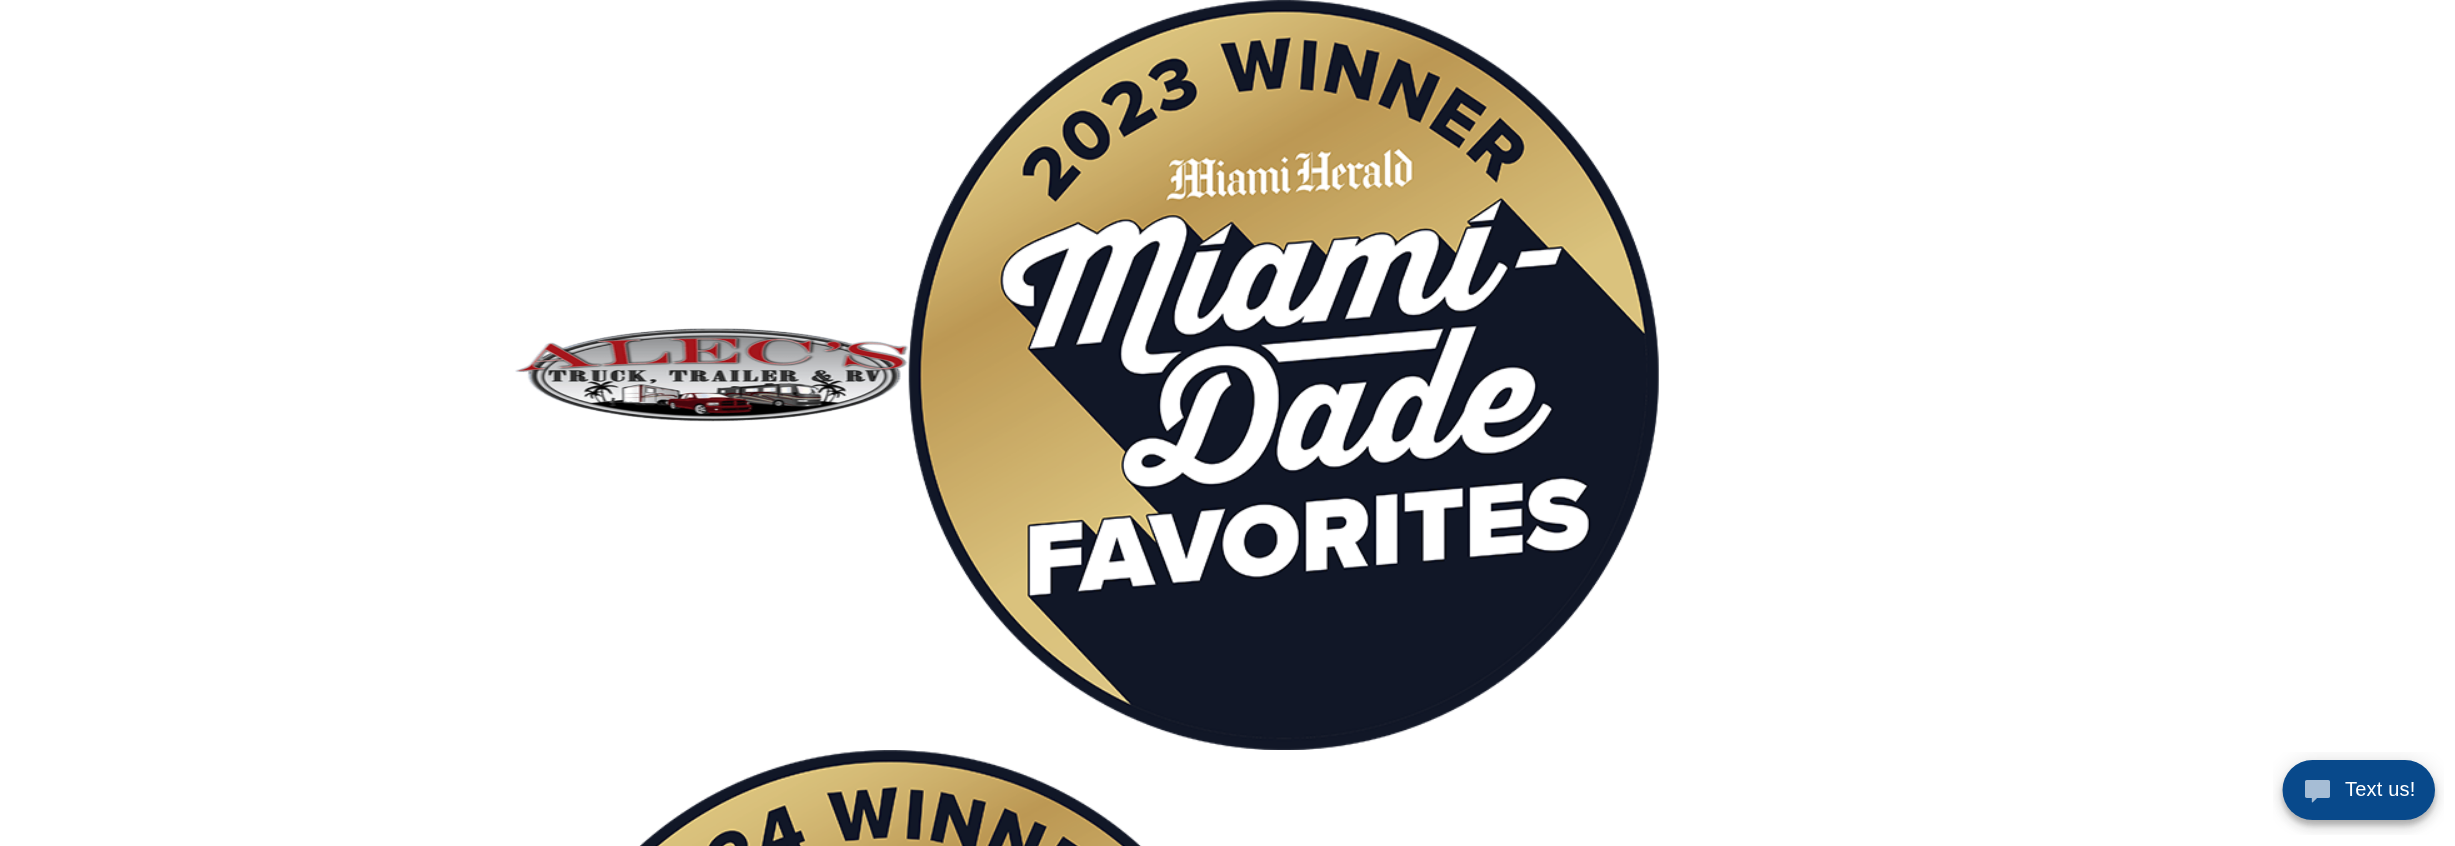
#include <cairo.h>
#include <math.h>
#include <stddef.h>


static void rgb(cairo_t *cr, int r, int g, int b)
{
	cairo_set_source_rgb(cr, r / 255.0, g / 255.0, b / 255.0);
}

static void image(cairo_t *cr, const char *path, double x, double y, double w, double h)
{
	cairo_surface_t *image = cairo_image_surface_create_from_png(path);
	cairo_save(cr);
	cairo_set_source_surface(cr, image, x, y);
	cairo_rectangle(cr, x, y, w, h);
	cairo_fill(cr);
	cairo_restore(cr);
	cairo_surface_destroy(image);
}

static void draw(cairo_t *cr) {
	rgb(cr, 255, 255, 255);
	cairo_paint(cr);
	image(cr, "image0.png", 515, 328, 394, 94);
	image(cr, "image1.png", 908, 0, 751, 750);
	image(cr, "image2.png", 639, 750, 503, 96);
	image(cr, "image3.png", 2273, 752, 171, 83);
}

int main(void) {
	cairo_surface_t *surface = cairo_image_surface_create(CAIRO_FORMAT_RGB24, 2455, 846);
	cairo_t *cr = cairo_create(surface);
	cairo_font_options_t *options = cairo_font_options_create();
	cairo_font_options_set_hint_metrics(options, CAIRO_HINT_METRICS_OFF);
	cairo_font_options_set_hint_style(options, CAIRO_HINT_STYLE_NONE);
	cairo_set_font_options(cr, options);
	cairo_set_miter_limit(cr, 4);
	draw(cr);
	cairo_surface_write_to_png(surface, "render.png");
	cairo_font_options_destroy(options);
	cairo_destroy(cr);
	cairo_surface_destroy(surface);
	return 0;
}
